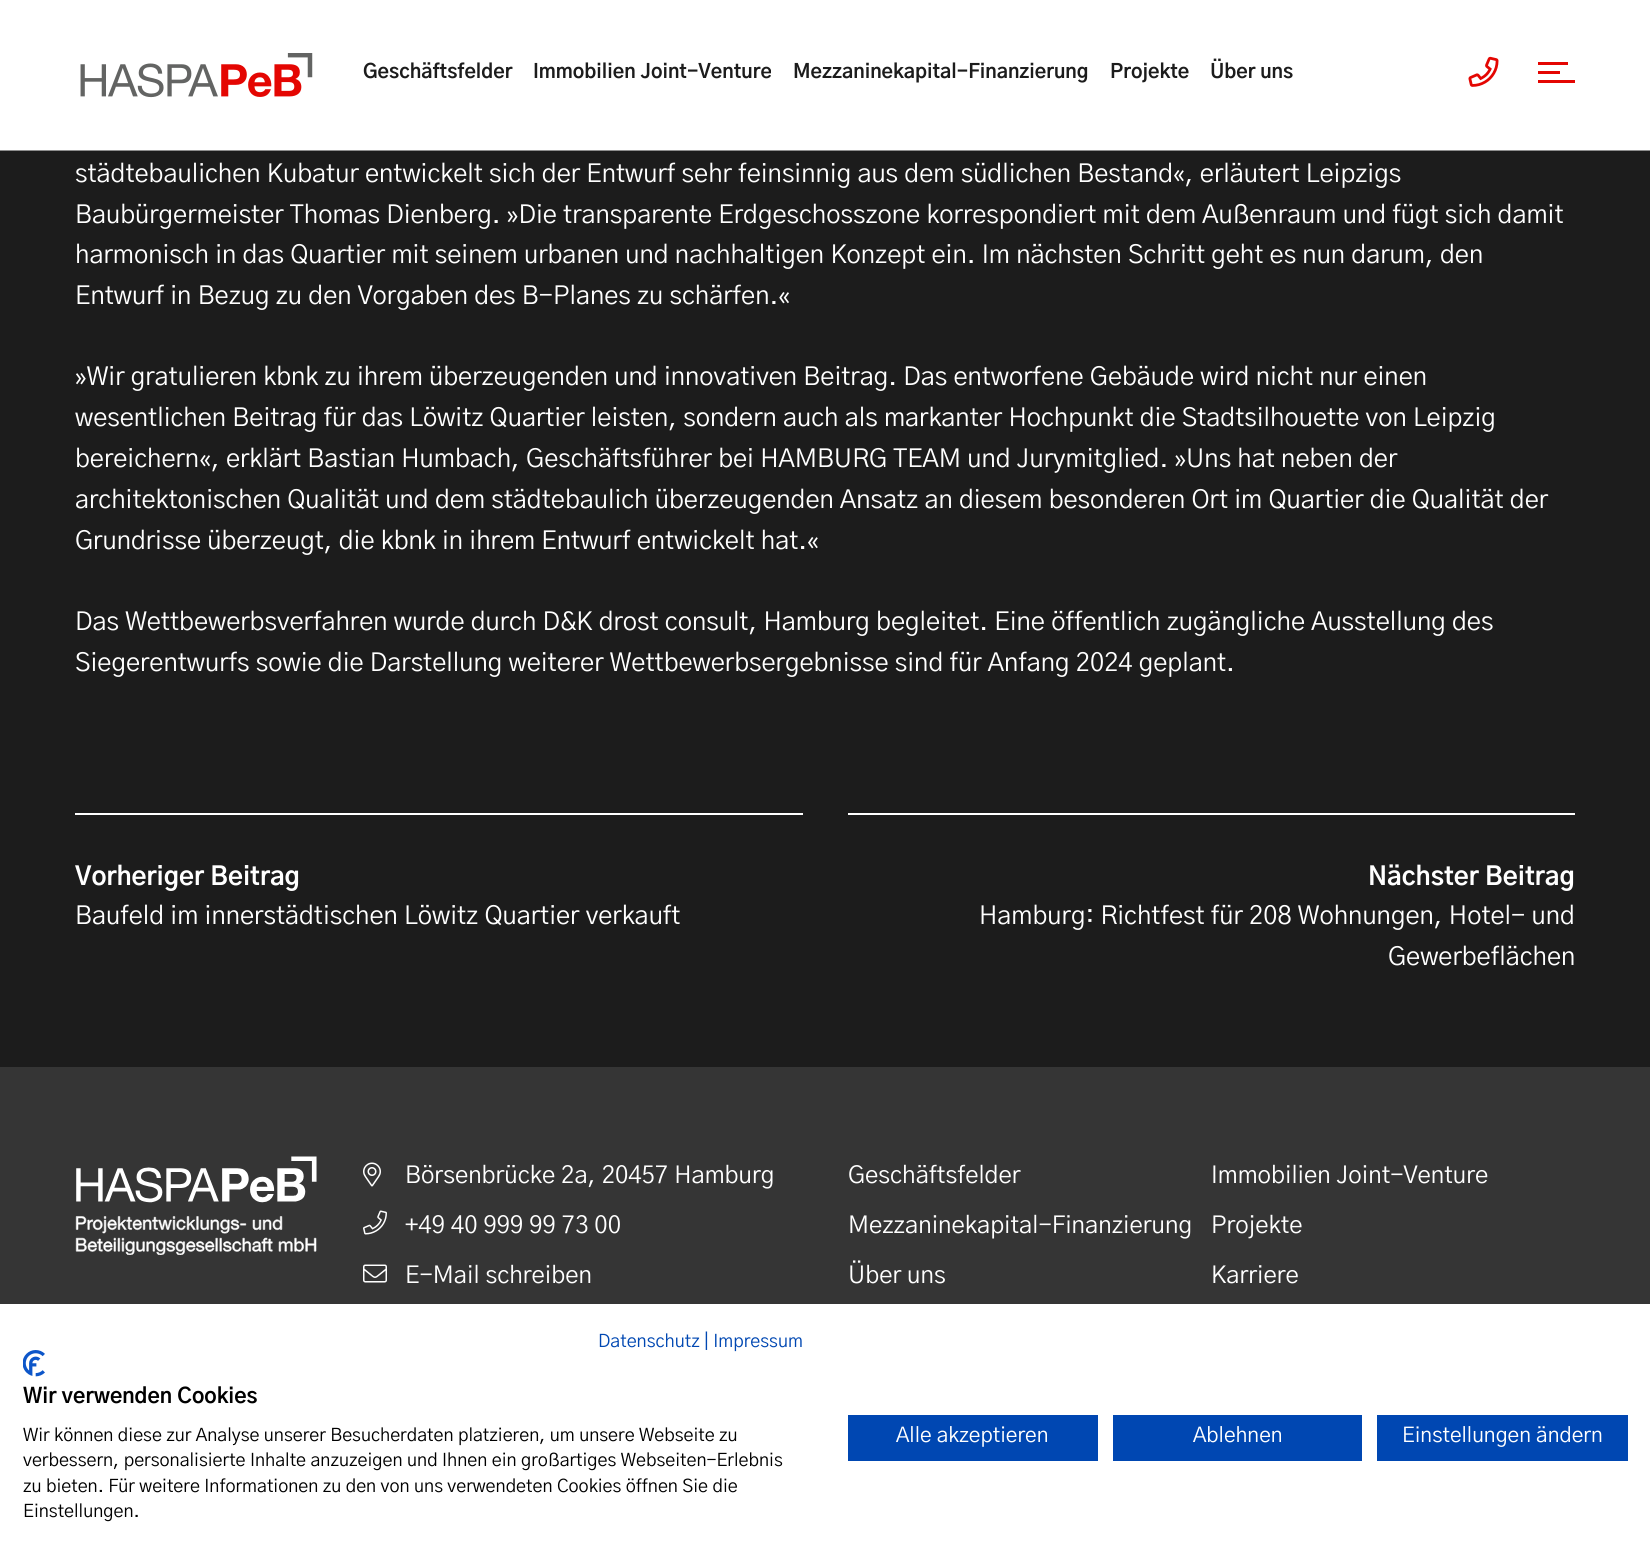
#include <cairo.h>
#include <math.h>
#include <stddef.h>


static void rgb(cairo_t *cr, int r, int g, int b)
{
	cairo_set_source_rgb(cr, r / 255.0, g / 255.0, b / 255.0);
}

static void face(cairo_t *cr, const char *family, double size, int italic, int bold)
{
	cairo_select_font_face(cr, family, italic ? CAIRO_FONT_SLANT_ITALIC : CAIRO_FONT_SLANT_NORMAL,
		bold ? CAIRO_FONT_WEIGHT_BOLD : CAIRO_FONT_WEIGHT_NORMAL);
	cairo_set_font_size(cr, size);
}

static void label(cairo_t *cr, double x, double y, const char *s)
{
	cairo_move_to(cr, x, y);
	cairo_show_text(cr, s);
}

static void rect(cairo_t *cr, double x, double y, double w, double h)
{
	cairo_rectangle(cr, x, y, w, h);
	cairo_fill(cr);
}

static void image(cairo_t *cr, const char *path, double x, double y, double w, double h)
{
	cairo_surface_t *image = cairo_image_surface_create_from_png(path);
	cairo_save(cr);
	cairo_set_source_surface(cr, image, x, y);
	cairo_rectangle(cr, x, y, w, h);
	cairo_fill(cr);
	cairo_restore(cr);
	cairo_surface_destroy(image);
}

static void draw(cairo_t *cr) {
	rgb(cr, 28, 28, 28);
	cairo_paint(cr);
	rgb(cr, 142, 142, 142);
	rect(cr, 0, 150, 1650, 1);
	rgb(cr, 255, 255, 255);
	rect(cr, 0, 0, 1650, 150);
	image(cr, "image0.png", 80, 53, 233, 45);
	face(cr, "Gothic A1", 19.5, 0, 1);
	rgb(cr, 28, 28, 28);
	label(cr, 363, 78, "Geschäftsfelder");
	label(cr, 533, 78, "Immobilien Joint-Venture");
	label(cr, 793, 78, "Mezzaninekapital-Finanzierung");
	label(cr, 1110, 78, "Projekte");
	label(cr, 1210, 78, "Über uns");
	image(cr, "image1.png", 1468, 56, 31, 31);
	rgb(cr, 228, 6, 2);
	rect(cr, 1538, 80, 37, 3);
	rect(cr, 1538, 62, 30, 3);
	rect(cr, 1538, 71, 22, 3);
	face(cr, "Gothic A1", 25.5, 0, 0);
	rgb(cr, 255, 255, 255);
	label(cr, 75, 182, "städtebaulichen Kubatur entwickelt sich der Entwurf sehr feinsinnig aus dem südlichen Bestand«, erläutert Leipzigs");
	label(cr, 75, 223, "Baubürgermeister Thomas Dienberg. »Die transparente Erdgeschosszone korrespondiert mit dem Außenraum und fügt sich damit");
	label(cr, 75, 263, "harmonisch in das Quartier mit seinem urbanen und nachhaltigen Konzept ein. Im nächsten Schritt geht es nun darum, den");
	label(cr, 75, 304, "Entwurf in Bezug zu den Vorgaben des B-Planes zu schärfen.«");
	label(cr, 75, 385, "»Wir gratulieren kbnk zu ihrem überzeugenden und innovativen Beitrag. Das entworfene Gebäude wird nicht nur einen");
	label(cr, 75, 426, "wesentlichen Beitrag für das Löwitz Quartier leisten, sondern auch als markanter Hochpunkt die Stadtsilhouette von Leipzig");
	label(cr, 75, 467, "bereichern«, erklärt Bastian Humbach, Geschäftsführer bei HAMBURG TEAM und Jurymitglied. »Uns hat neben der");
	label(cr, 75, 508, "architektonischen Qualität und dem städtebaulich überzeugenden Ansatz an diesem besonderen Ort im Quartier die Qualität der");
	label(cr, 75, 549, "Grundrisse überzeugt, die kbnk in ihrem Entwurf entwickelt hat.«");
	label(cr, 75, 630, "Das Wettbewerbsverfahren wurde durch D&K drost consult, Hamburg begleitet. Eine öffentlich zugängliche Ausstellung des");
	label(cr, 75, 671, "Siegerentwurfs sowie die Darstellung weiterer Wettbewerbsergebnisse sind für Anfang 2024 geplant.");
	rect(cr, 75, 813, 728, 2);
	face(cr, "Gothic A1", 25.5, 0, 1);
	label(cr, 75, 885, "Vorheriger Beitrag");
	face(cr, "Gothic A1", 25.5, 0, 0);
	label(cr, 75, 924, "Baufeld im innerstädtischen Löwitz Quartier verkauft");
	rect(cr, 848, 813, 727, 2);
	face(cr, "Gothic A1", 25.5, 0, 1);
	label(cr, 1368, 885, "Nächster Beitrag");
	face(cr, "Gothic A1", 25.5, 0, 0);
	label(cr, 979, 924, "Hamburg: Richtfest für 208 Wohnungen, Hotel- und");
	label(cr, 1388, 965, "Gewerbeflächen");
	rgb(cr, 53, 53, 53);
	rect(cr, 0, 1067, 1650, 237);
	image(cr, "image2.png", 75, 1156, 242, 99);
	image(cr, "image3.png", 363, 1162, 18, 25);
	face(cr, "Gothic A1", 24, 0, 0);
	rgb(cr, 255, 255, 255);
	label(cr, 405, 1183, "Börsenbrücke 2a, 20457 Hamburg");
	image(cr, "image4.png", 363, 1210, 24, 25);
	label(cr, 405, 1233, "+49 40 999 99 73 00");
	image(cr, "image5.png", 363, 1264, 24, 19);
	label(cr, 405, 1283, "E-Mail schreiben");
	label(cr, 848, 1183, "Geschäftsfelder");
	label(cr, 1211, 1183, "Immobilien Joint-Venture");
	label(cr, 848, 1233, "Mezzaninekapital-Finanzierung");
	label(cr, 1211, 1233, "Projekte");
	label(cr, 848, 1283, "Über uns");
	label(cr, 1211, 1283, "Karriere");
	rect(cr, 0, 1304, 1650, 260);
	face(cr, "Gothic A1", 18, 0, 0);
	rgb(cr, 0, 71, 178);
	label(cr, 598, 1347, "Datenschutz | Impressum");
	image(cr, "image6.png", 23, 1350, 22, 27);
	face(cr, "Gothic A1", 21, 0, 1);
	rgb(cr, 0, 0, 0);
	label(cr, 23, 1403, "Wir verwenden Cookies");
	face(cr, "Gothic A1", 18, 0, 0);
	label(cr, 23, 1441, "Wir können diese zur Analyse unserer Besucherdaten platzieren, um unsere Webseite zu");
	label(cr, 23, 1466, "verbessern, personalisierte Inhalte anzuzeigen und Ihnen ein großartiges Webseiten-Erlebnis");
	label(cr, 23, 1492, "zu bieten. Für weitere Informationen zu den von uns verwendeten Cookies öffnen Sie die");
	label(cr, 23, 1517, "Einstellungen.");
	rgb(cr, 0, 71, 178);
	rect(cr, 848, 1415, 250, 46);
	face(cr, "Gothic A1", 21, 0, 0);
	rgb(cr, 255, 255, 255);
	label(cr, 896, 1442, "Alle akzeptieren");
	rgb(cr, 0, 71, 178);
	rect(cr, 1113, 1415, 249, 46);
	rgb(cr, 255, 255, 255);
	label(cr, 1193, 1442, "Ablehnen");
	rgb(cr, 0, 71, 178);
	rect(cr, 1377, 1415, 251, 46);
	rgb(cr, 255, 255, 255);
	label(cr, 1402, 1442, "Einstellungen ändern");
}

int main(void) {
	cairo_surface_t *surface = cairo_image_surface_create(CAIRO_FORMAT_RGB24, 1650, 1564);
	cairo_t *cr = cairo_create(surface);
	cairo_font_options_t *options = cairo_font_options_create();
	cairo_font_options_set_hint_metrics(options, CAIRO_HINT_METRICS_OFF);
	cairo_font_options_set_hint_style(options, CAIRO_HINT_STYLE_NONE);
	cairo_set_font_options(cr, options);
	cairo_set_miter_limit(cr, 4);
	draw(cr);
	cairo_surface_write_to_png(surface, "render.png");
	cairo_font_options_destroy(options);
	cairo_destroy(cr);
	cairo_surface_destroy(surface);
	return 0;
}
